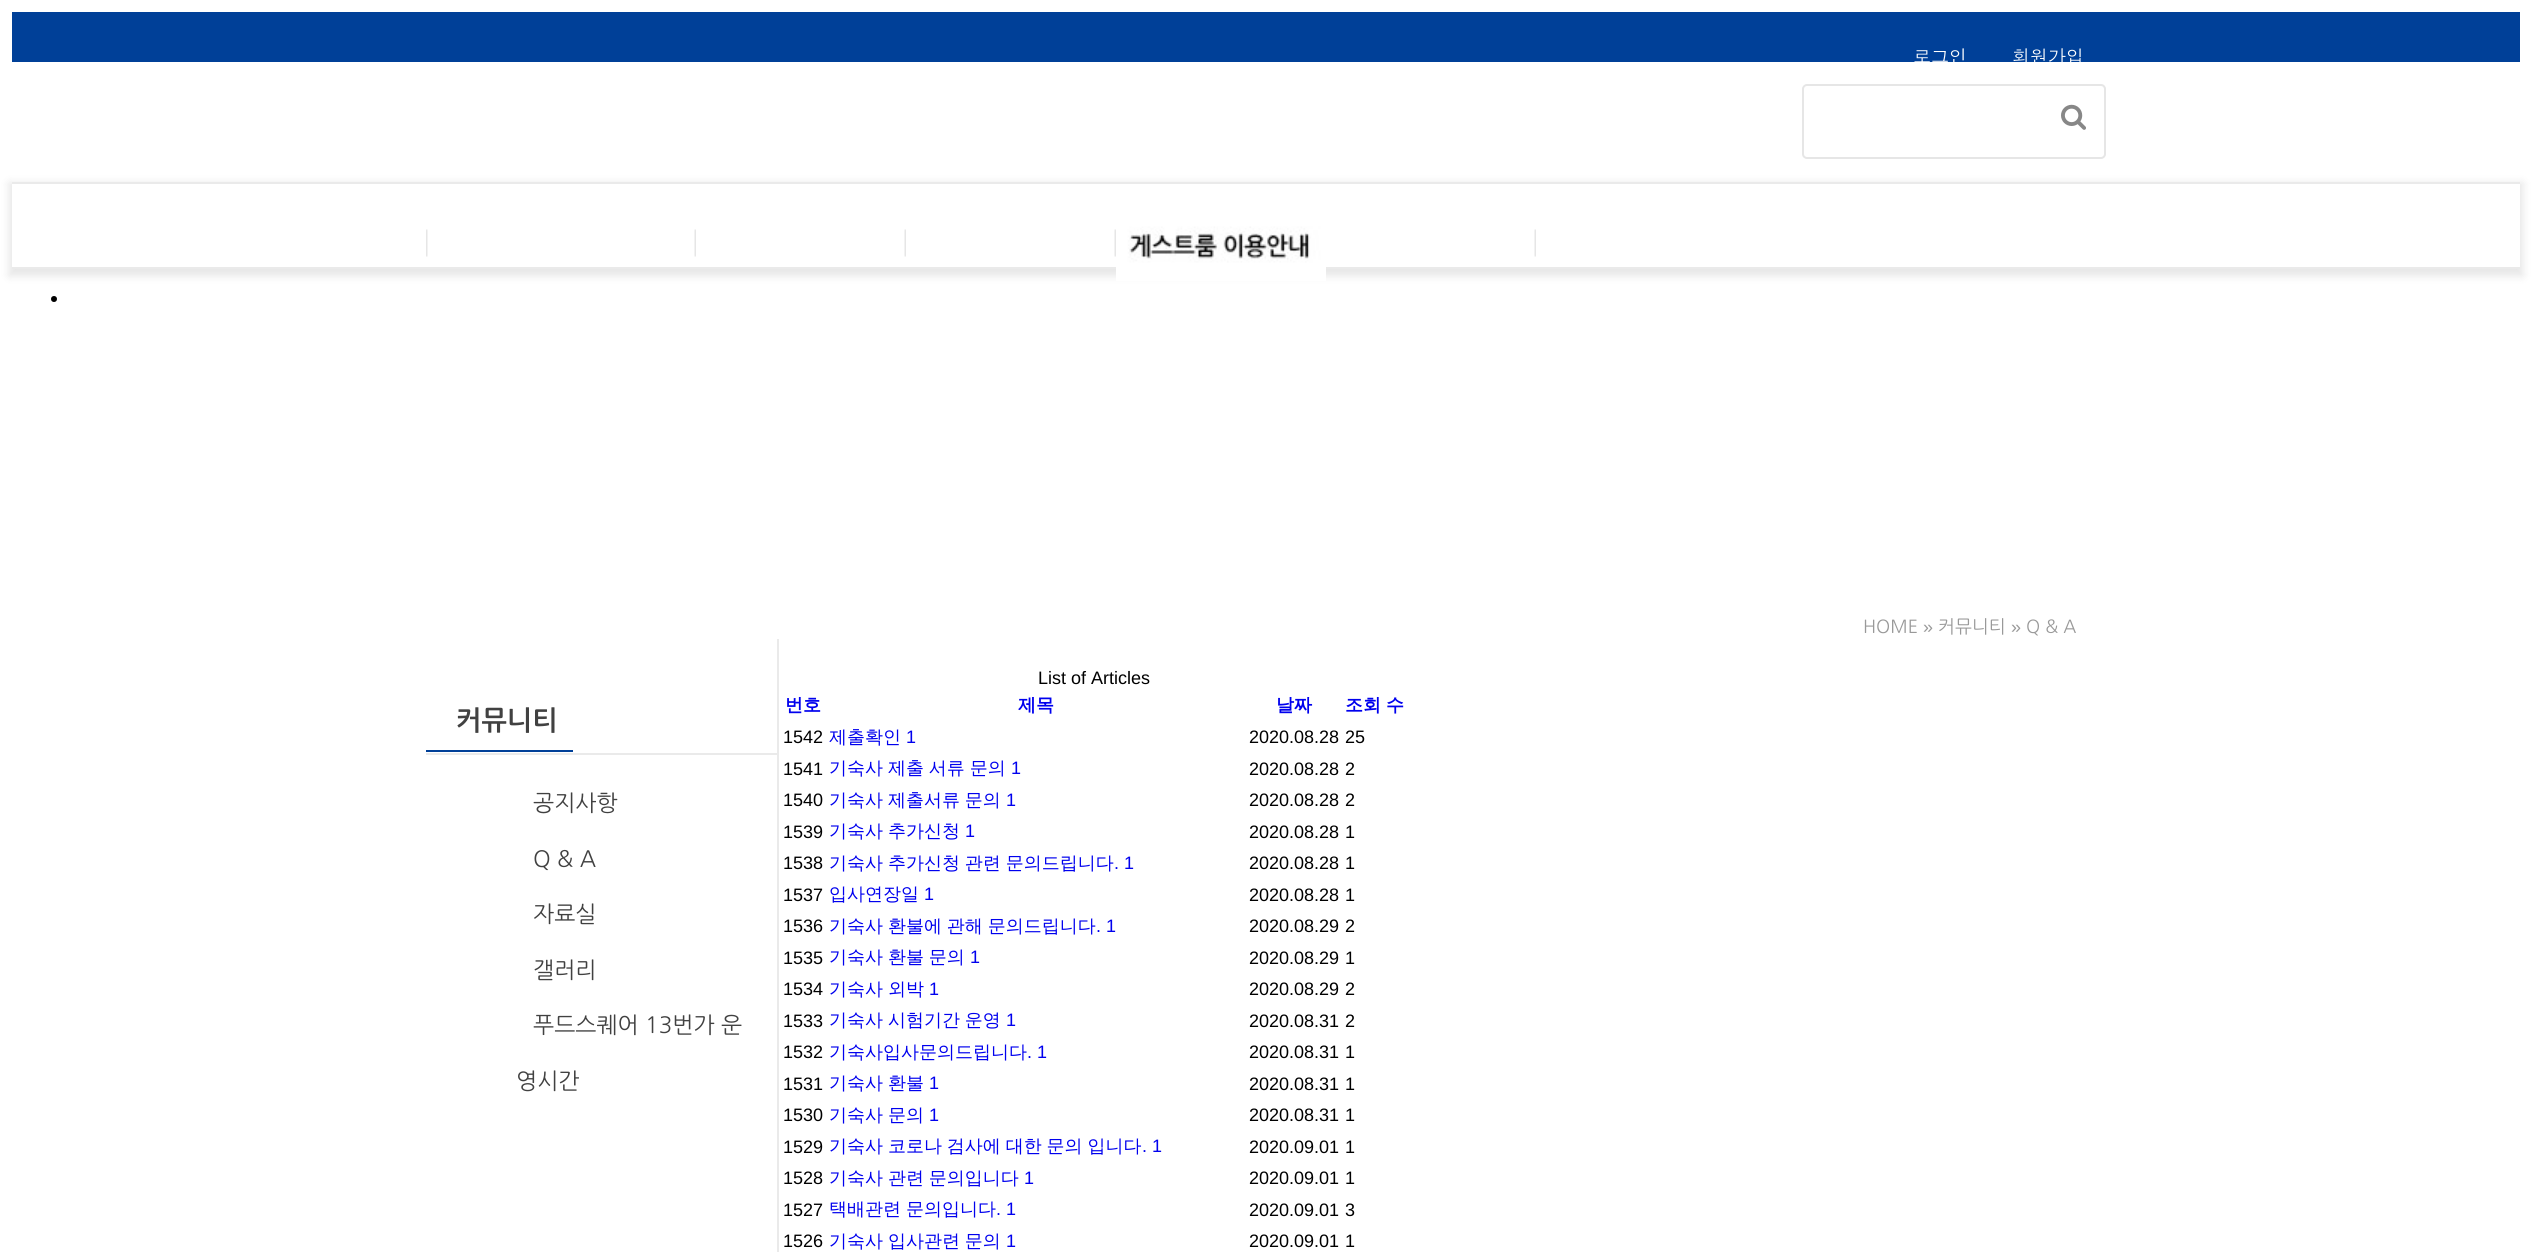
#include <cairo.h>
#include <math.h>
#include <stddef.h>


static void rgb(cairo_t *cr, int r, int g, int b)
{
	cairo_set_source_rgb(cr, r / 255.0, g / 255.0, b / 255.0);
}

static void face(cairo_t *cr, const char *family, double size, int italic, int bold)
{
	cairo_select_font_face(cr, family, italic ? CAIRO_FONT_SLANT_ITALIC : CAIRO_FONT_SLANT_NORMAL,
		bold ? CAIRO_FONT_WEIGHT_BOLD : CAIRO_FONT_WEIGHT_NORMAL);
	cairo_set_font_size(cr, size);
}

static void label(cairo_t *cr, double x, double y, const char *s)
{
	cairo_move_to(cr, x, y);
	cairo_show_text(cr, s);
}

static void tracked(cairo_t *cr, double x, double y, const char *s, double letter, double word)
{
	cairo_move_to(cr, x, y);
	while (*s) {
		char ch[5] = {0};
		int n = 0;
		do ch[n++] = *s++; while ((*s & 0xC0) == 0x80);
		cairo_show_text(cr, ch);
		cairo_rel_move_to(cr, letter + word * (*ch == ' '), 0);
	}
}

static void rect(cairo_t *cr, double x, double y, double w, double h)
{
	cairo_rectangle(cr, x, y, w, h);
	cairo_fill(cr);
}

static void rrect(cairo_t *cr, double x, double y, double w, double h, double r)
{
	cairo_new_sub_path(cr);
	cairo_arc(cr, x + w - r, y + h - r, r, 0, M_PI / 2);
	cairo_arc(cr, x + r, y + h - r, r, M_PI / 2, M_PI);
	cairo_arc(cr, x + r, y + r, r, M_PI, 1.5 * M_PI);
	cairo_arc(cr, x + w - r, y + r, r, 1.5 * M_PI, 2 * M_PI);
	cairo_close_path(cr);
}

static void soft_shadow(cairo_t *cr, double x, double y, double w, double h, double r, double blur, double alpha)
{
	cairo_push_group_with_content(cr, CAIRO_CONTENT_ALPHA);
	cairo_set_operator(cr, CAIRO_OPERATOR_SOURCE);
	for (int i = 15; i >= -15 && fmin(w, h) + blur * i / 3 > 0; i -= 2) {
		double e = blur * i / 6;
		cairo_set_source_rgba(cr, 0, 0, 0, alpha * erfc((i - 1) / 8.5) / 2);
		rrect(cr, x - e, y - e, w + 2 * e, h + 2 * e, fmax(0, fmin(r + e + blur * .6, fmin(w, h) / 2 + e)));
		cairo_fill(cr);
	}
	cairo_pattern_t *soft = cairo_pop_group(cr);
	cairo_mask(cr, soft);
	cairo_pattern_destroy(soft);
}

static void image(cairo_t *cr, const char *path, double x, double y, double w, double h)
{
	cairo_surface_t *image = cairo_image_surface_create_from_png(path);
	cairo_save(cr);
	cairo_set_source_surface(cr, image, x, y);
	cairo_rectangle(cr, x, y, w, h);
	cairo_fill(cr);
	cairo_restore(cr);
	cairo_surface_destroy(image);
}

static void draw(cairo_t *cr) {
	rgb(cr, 255, 255, 255);
	cairo_paint(cr);
	rgb(cr, 0, 64, 152);
	rect(cr, 12, 12, 2508, 50);
	face(cr, "Dotum", 18, 0, 0);
	rgb(cr, 255, 255, 255);
	label(cr, 1913, 63, "로그인");
	label(cr, 2012, 63, "회원가입");
	rrect(cr, 1803, 85, 302, 73, 4);
	rgb(cr, 230, 230, 230);
	cairo_stroke(cr);
	image(cr, "image0.png", 2061, 104, 25, 26);
	rgb(cr, 0, 0, 0);
	soft_shadow(cr, 9, 183, 2514, 93, 0, 4.5, 0.1);
	rgb(cr, 255, 255, 255);
	rect(cr, 12, 184, 2508, 83);
	rgb(cr, 234, 234, 234);
	rect(cr, 12, 182, 2508, 2);
	rect(cr, 12, 267, 2508, 2);
	image(cr, "image1.png", 426, 229, 2, 28);
	image(cr, "image2.png", 694, 229, 2, 28);
	image(cr, "image2.png", 904, 229, 2, 28);
	image(cr, "image2.png", 1114, 229, 2, 28);
	image(cr, "image3.png", 1116, 226, 210, 55);
	image(cr, "image2.png", 1534, 229, 2, 28);
	rgb(cr, 0, 0, 0);
	cairo_arc(cr, 54, 299, 3, 0, 2 * M_PI);
	cairo_fill(cr);
	face(cr, "NanumGothic", 18, 0, 0);
	rgb(cr, 153, 153, 153);
	label(cr, 1863, 633, "HOME");
	face(cr, "Liberation Sans", 18, 0, 0);
	label(cr, 1923, 633, "»");
	face(cr, "NanumGothic", 18, 0, 0);
	label(cr, 1938, 633, "커뮤니티");
	face(cr, "Liberation Sans", 18, 0, 0);
	label(cr, 2011, 633, "»");
	face(cr, "NanumGothic", 18, 0, 0);
	label(cr, 2026, 633, "Q & A");
	rgb(cr, 234, 234, 234);
	rect(cr, 426, 753, 351, 2);
	face(cr, "NanumGothic", 27, 0, 1);
	rgb(cr, 65, 65, 65);
	label(cr, 456, 730, "커뮤니티");
	rgb(cr, 0, 64, 152);
	rect(cr, 426, 750, 147, 2);
	face(cr, "NanumGothic", 22.5, 0, 0);
	rgb(cr, 65, 65, 65);
	label(cr, 533, 811, "공지사항");
	label(cr, 533, 867, "Q & A");
	label(cr, 533, 922, "자료실");
	label(cr, 533, 978, "갤러리");
	label(cr, 533, 1033, "푸드스퀘어 13번가 운");
	label(cr, 516, 1089, "영시간");
	rgb(cr, 234, 234, 234);
	rect(cr, 777, 639, 2, 613);
	face(cr, "Liberation Sans", 18, 0, 0);
	rgb(cr, 0, 0, 0);
	label(cr, 1038, 684, "List of Articles");
	face(cr, "WenQuanYi Zen Hei", 18, 0, 1);
	rgb(cr, 0, 0, 238);
	label(cr, 785, 711, "번호");
	label(cr, 1018, 711, "제목");
	label(cr, 1276, 711, "날짜");
	tracked(cr, 1345, 711, "조회 수", 0, -0.5);
	face(cr, "Liberation Sans", 18, 0, 0);
	rgb(cr, 0, 0, 0);
	label(cr, 783, 743, "1542");
	face(cr, "WenQuanYi Zen Hei Medium", 18, 0, 0);
	rgb(cr, 0, 0, 238);
	label(cr, 829, 743, "제출확인");
	face(cr, "Liberation Sans", 18, 0, 0);
	label(cr, 906, 743, "1");
	rgb(cr, 0, 0, 0);
	label(cr, 1249, 743, "2020.08.28");
	label(cr, 1345, 743, "25");
	label(cr, 783, 775, "1541");
	face(cr, "WenQuanYi Zen Hei Medium", 18, 0, 0);
	rgb(cr, 0, 0, 238);
	tracked(cr, 829, 774, "기숙사 제출 서류 문의", 0, -0.5);
	face(cr, "Liberation Sans", 18, 0, 0);
	label(cr, 1011, 774, "1");
	rgb(cr, 0, 0, 0);
	label(cr, 1249, 775, "2020.08.28");
	label(cr, 1345, 775, "2");
	label(cr, 783, 806, "1540");
	face(cr, "WenQuanYi Zen Hei Medium", 18, 0, 0);
	rgb(cr, 0, 0, 238);
	tracked(cr, 829, 806, "기숙사 제출서류 문의", 0, -0.5);
	face(cr, "Liberation Sans", 18, 0, 0);
	label(cr, 1006, 806, "1");
	rgb(cr, 0, 0, 0);
	label(cr, 1249, 806, "2020.08.28");
	label(cr, 1345, 806, "2");
	label(cr, 783, 838, "1539");
	face(cr, "WenQuanYi Zen Hei Medium", 18, 0, 0);
	rgb(cr, 0, 0, 238);
	tracked(cr, 829, 837, "기숙사 추가신청", 0, -0.5);
	face(cr, "Liberation Sans", 18, 0, 0);
	label(cr, 965, 837, "1");
	rgb(cr, 0, 0, 0);
	label(cr, 1249, 838, "2020.08.28");
	label(cr, 1345, 838, "1");
	label(cr, 783, 869, "1538");
	face(cr, "WenQuanYi Zen Hei Medium", 18, 0, 0);
	rgb(cr, 0, 0, 238);
	tracked(cr, 829, 869, "기숙사 추가신청 관련 문의드립니다", 0, -0.5);
	face(cr, "Liberation Sans", 18, 0, 0);
	label(cr, 1114, 869, ". 1");
	rgb(cr, 0, 0, 0);
	label(cr, 1249, 869, "2020.08.28");
	label(cr, 1345, 869, "1");
	label(cr, 783, 901, "1537");
	face(cr, "WenQuanYi Zen Hei Medium", 18, 0, 0);
	rgb(cr, 0, 0, 238);
	label(cr, 829, 900, "입사연장일");
	face(cr, "Liberation Sans", 18, 0, 0);
	label(cr, 924, 900, "1");
	rgb(cr, 0, 0, 0);
	label(cr, 1249, 901, "2020.08.28");
	label(cr, 1345, 901, "1");
	label(cr, 783, 932, "1536");
	face(cr, "WenQuanYi Zen Hei Medium", 18, 0, 0);
	rgb(cr, 0, 0, 238);
	tracked(cr, 829, 932, "기숙사 환불에 관해 문의드립니다", 0, -0.5);
	face(cr, "Liberation Sans", 18, 0, 0);
	label(cr, 1096, 932, ". 1");
	rgb(cr, 0, 0, 0);
	label(cr, 1249, 932, "2020.08.29");
	label(cr, 1345, 932, "2");
	label(cr, 783, 964, "1535");
	face(cr, "WenQuanYi Zen Hei Medium", 18, 0, 0);
	rgb(cr, 0, 0, 238);
	tracked(cr, 829, 963, "기숙사 환불 문의", 0, -0.5);
	face(cr, "Liberation Sans", 18, 0, 0);
	label(cr, 970, 963, "1");
	rgb(cr, 0, 0, 0);
	label(cr, 1249, 964, "2020.08.29");
	label(cr, 1345, 964, "1");
	label(cr, 783, 995, "1534");
	face(cr, "WenQuanYi Zen Hei Medium", 18, 0, 0);
	rgb(cr, 0, 0, 238);
	tracked(cr, 829, 995, "기숙사 외박", 0, -0.5);
	face(cr, "Liberation Sans", 18, 0, 0);
	label(cr, 929, 995, "1");
	rgb(cr, 0, 0, 0);
	label(cr, 1249, 995, "2020.08.29");
	label(cr, 1345, 995, "2");
	label(cr, 783, 1027, "1533");
	face(cr, "WenQuanYi Zen Hei Medium", 18, 0, 0);
	rgb(cr, 0, 0, 238);
	tracked(cr, 829, 1026, "기숙사 시험기간 운영", 0, -0.5);
	face(cr, "Liberation Sans", 18, 0, 0);
	label(cr, 1006, 1026, "1");
	rgb(cr, 0, 0, 0);
	label(cr, 1249, 1027, "2020.08.31");
	label(cr, 1345, 1027, "2");
	label(cr, 783, 1058, "1532");
	face(cr, "WenQuanYi Zen Hei Medium", 18, 0, 0);
	rgb(cr, 0, 0, 238);
	label(cr, 829, 1058, "기숙사입사문의드립니다");
	face(cr, "Liberation Sans", 18, 0, 0);
	label(cr, 1027, 1058, ". 1");
	rgb(cr, 0, 0, 0);
	label(cr, 1249, 1058, "2020.08.31");
	label(cr, 1345, 1058, "1");
	label(cr, 783, 1090, "1531");
	face(cr, "WenQuanYi Zen Hei Medium", 18, 0, 0);
	rgb(cr, 0, 0, 238);
	tracked(cr, 829, 1089, "기숙사 환불", 0, -0.5);
	face(cr, "Liberation Sans", 18, 0, 0);
	label(cr, 929, 1089, "1");
	rgb(cr, 0, 0, 0);
	label(cr, 1249, 1090, "2020.08.31");
	label(cr, 1345, 1090, "1");
	label(cr, 783, 1121, "1530");
	face(cr, "WenQuanYi Zen Hei Medium", 18, 0, 0);
	rgb(cr, 0, 0, 238);
	tracked(cr, 829, 1121, "기숙사 문의", 0, -0.5);
	face(cr, "Liberation Sans", 18, 0, 0);
	label(cr, 929, 1121, "1");
	rgb(cr, 0, 0, 0);
	label(cr, 1249, 1121, "2020.08.31");
	label(cr, 1345, 1121, "1");
	label(cr, 783, 1153, "1529");
	face(cr, "WenQuanYi Zen Hei Medium", 18, 0, 0);
	rgb(cr, 0, 0, 238);
	tracked(cr, 829, 1152, "기숙사 코로나 검사에 대한 문의 입니다", 0, -0.5);
	face(cr, "Liberation Sans", 18, 0, 0);
	label(cr, 1142, 1152, ". 1");
	rgb(cr, 0, 0, 0);
	label(cr, 1249, 1153, "2020.09.01");
	label(cr, 1345, 1153, "1");
	label(cr, 783, 1184, "1528");
	face(cr, "WenQuanYi Zen Hei Medium", 18, 0, 0);
	rgb(cr, 0, 0, 238);
	tracked(cr, 829, 1184, "기숙사 관련 문의입니다", 0, -0.5);
	face(cr, "Liberation Sans", 18, 0, 0);
	label(cr, 1024, 1184, "1");
	rgb(cr, 0, 0, 0);
	label(cr, 1249, 1184, "2020.09.01");
	label(cr, 1345, 1184, "1");
	label(cr, 783, 1216, "1527");
	face(cr, "WenQuanYi Zen Hei Medium", 18, 0, 0);
	rgb(cr, 0, 0, 238);
	tracked(cr, 829, 1215, "택배관련 문의입니다", 0, -0.5);
	face(cr, "Liberation Sans", 18, 0, 0);
	label(cr, 996, 1215, ". 1");
	rgb(cr, 0, 0, 0);
	label(cr, 1249, 1216, "2020.09.01");
	label(cr, 1345, 1216, "3");
	label(cr, 783, 1247, "1526");
	face(cr, "WenQuanYi Zen Hei Medium", 18, 0, 0);
	rgb(cr, 0, 0, 238);
	tracked(cr, 829, 1247, "기숙사 입사관련 문의", 0, -0.5);
	face(cr, "Liberation Sans", 18, 0, 0);
	label(cr, 1006, 1247, "1");
	rgb(cr, 0, 0, 0);
	label(cr, 1249, 1247, "2020.09.01");
	label(cr, 1345, 1247, "1");
}

int main(void) {
	cairo_surface_t *surface = cairo_image_surface_create(CAIRO_FORMAT_RGB24, 2531, 1252);
	cairo_t *cr = cairo_create(surface);
	cairo_font_options_t *options = cairo_font_options_create();
	cairo_font_options_set_hint_metrics(options, CAIRO_HINT_METRICS_OFF);
	cairo_font_options_set_hint_style(options, CAIRO_HINT_STYLE_NONE);
	cairo_set_font_options(cr, options);
	cairo_set_miter_limit(cr, 4);
	draw(cr);
	cairo_surface_write_to_png(surface, "render.png");
	cairo_font_options_destroy(options);
	cairo_destroy(cr);
	cairo_surface_destroy(surface);
	return 0;
}
